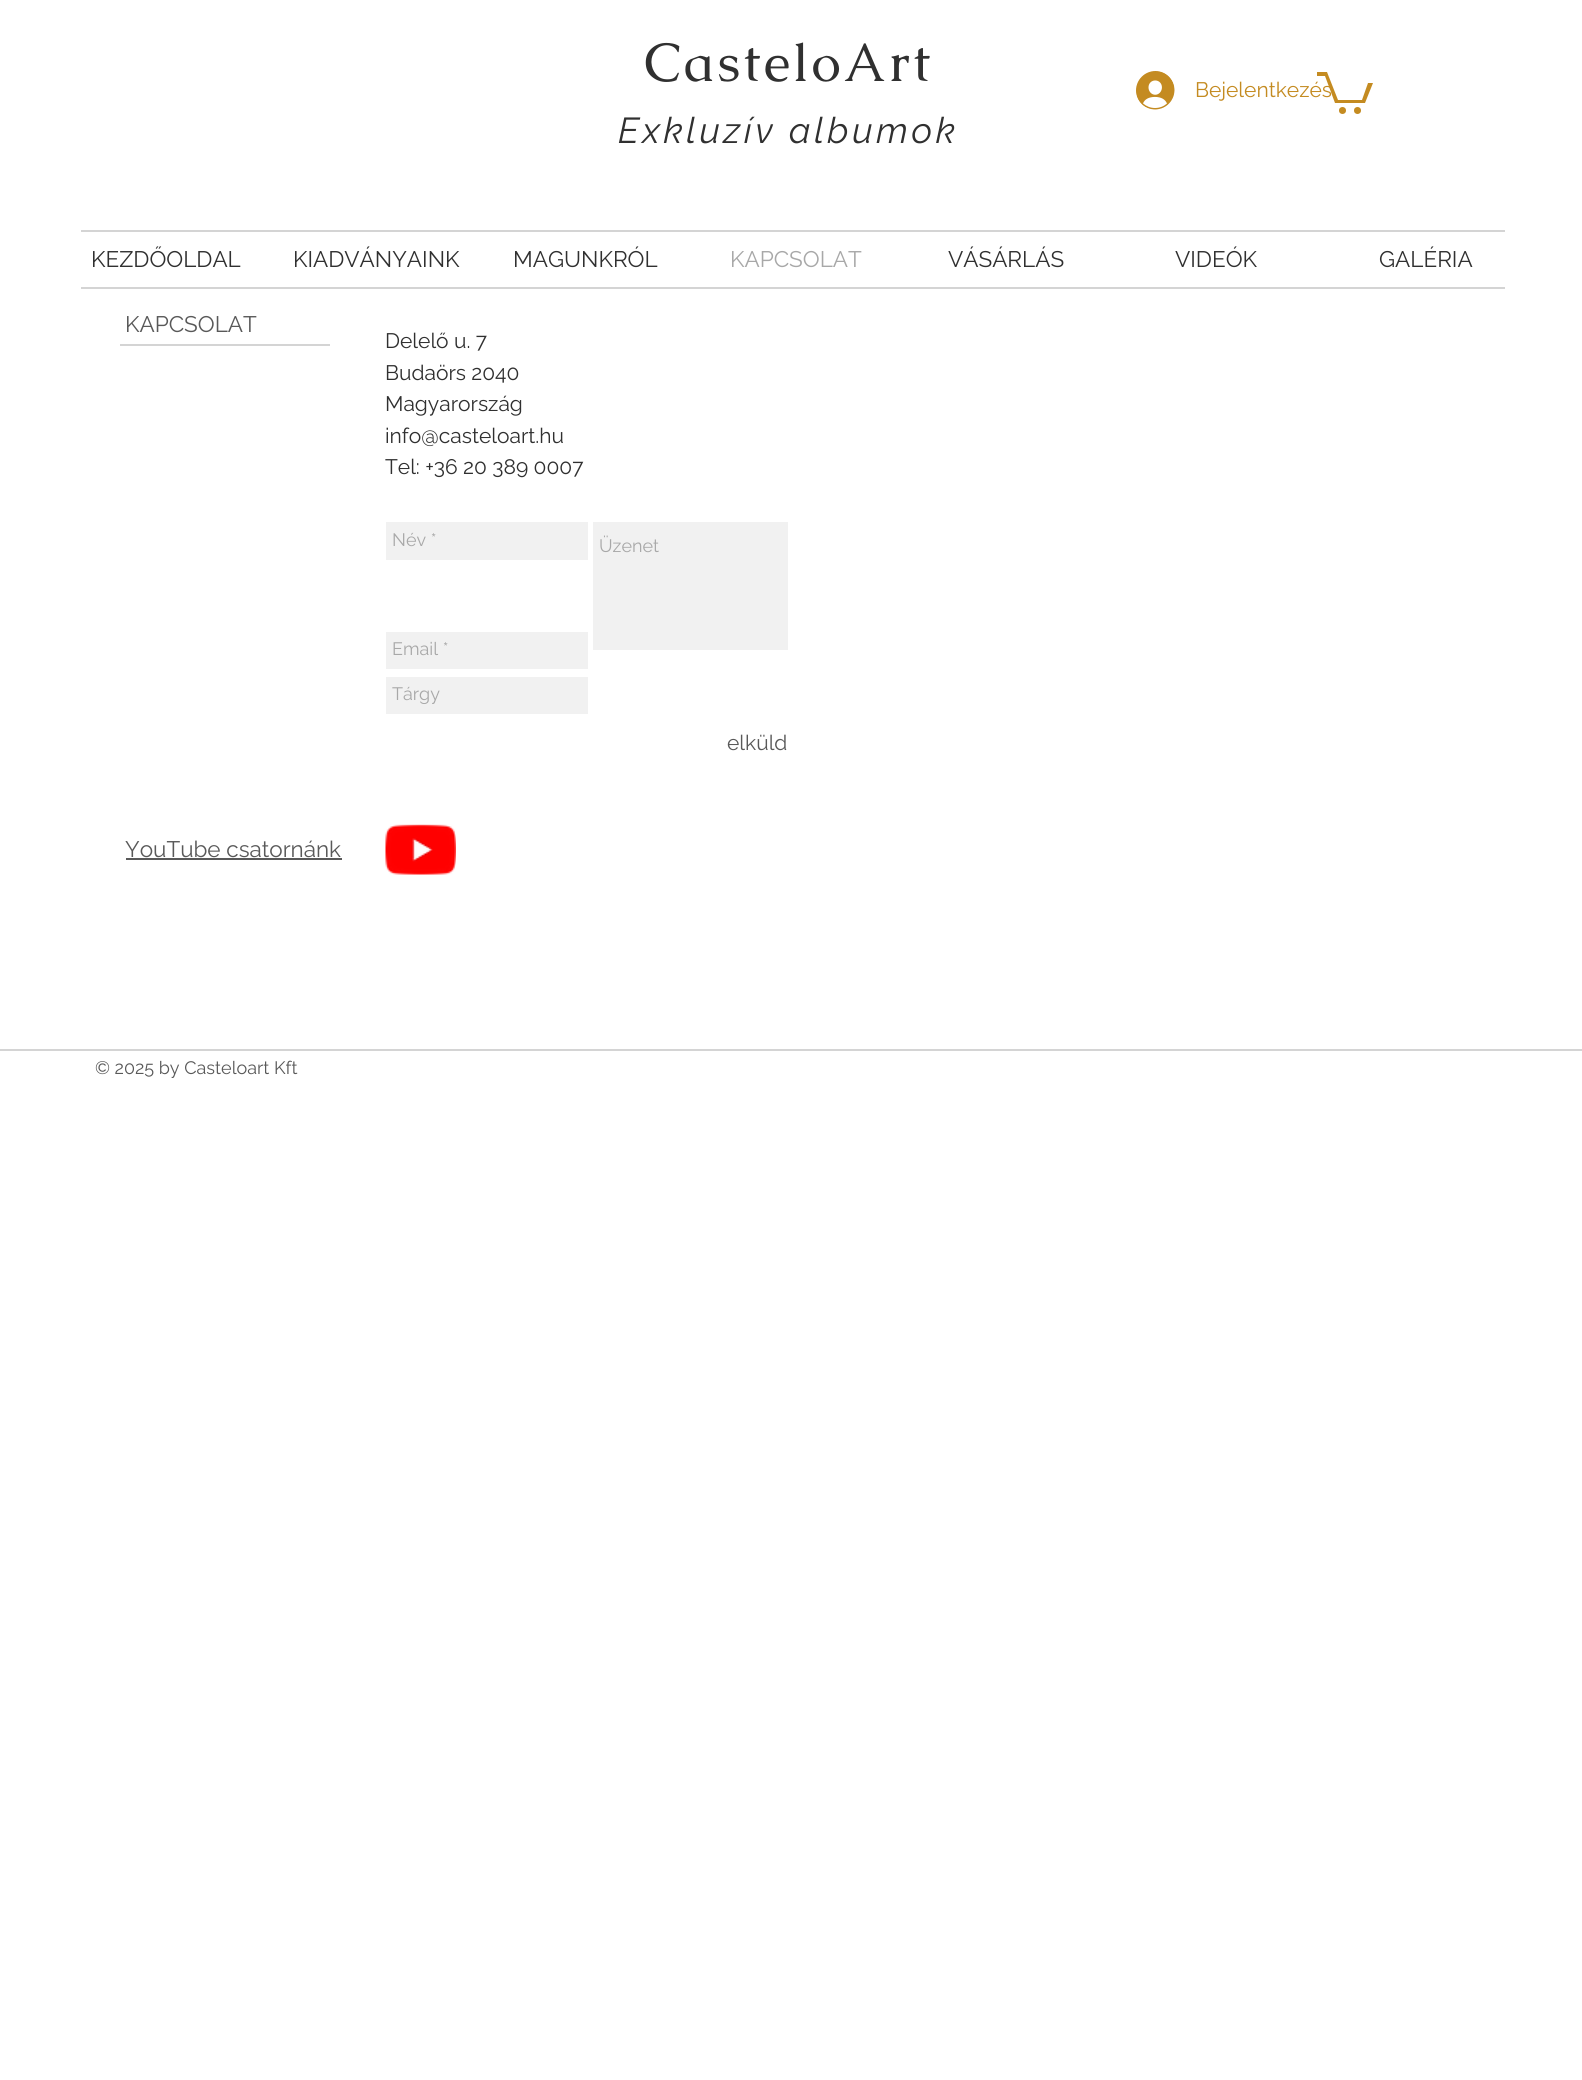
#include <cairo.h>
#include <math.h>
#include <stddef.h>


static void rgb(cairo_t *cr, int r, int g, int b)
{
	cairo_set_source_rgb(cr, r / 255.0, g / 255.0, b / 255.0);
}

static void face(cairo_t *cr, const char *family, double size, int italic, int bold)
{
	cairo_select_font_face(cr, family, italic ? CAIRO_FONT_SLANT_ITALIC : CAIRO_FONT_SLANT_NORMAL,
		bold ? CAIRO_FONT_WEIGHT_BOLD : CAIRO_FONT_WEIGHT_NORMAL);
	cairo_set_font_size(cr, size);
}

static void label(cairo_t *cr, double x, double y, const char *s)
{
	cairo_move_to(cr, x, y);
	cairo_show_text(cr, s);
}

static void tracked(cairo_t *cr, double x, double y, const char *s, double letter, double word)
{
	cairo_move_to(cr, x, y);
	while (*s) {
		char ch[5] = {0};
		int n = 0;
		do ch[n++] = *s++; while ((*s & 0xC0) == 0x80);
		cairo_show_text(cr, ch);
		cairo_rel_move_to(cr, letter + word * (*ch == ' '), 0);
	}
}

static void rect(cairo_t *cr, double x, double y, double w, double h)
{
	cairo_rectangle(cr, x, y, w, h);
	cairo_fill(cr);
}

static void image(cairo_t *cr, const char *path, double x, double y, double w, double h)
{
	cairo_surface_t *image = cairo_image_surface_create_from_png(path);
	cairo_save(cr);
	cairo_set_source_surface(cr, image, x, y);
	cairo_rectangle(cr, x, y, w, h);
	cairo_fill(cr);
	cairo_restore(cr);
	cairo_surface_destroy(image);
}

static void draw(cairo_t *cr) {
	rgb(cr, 255, 255, 255);
	cairo_paint(cr);
	face(cr, "Caudex", 54, 0, 0);
	rgb(cr, 48, 48, 48);
	tracked(cr, 644, 81, "CasteloArt", 2.75, 0);
	face(cr, "Raleway", 36, 1, 0);
	tracked(cr, 618, 143, "Exkluzív albumok", 3.6, 0);
	image(cr, "image0.png", 1136, 71, 39, 39);
	face(cr, "Raleway", 21, 0, 0);
	rgb(cr, 196, 139, 33);
	label(cr, 1195, 97, "Bejelentkezés");
	cairo_new_path(cr);
	cairo_move_to(cr, 1373, 83);
	cairo_line_to(cr, 1365, 103);
	cairo_line_to(cr, 1335, 103);
	cairo_line_to(cr, 1325, 76);
	cairo_line_to(cr, 1317, 76);
	cairo_line_to(cr, 1317, 72);
	cairo_line_to(cr, 1327, 72);
	cairo_line_to(cr, 1338, 100);
	cairo_line_to(cr, 1362, 100);
	cairo_line_to(cr, 1368, 83);
	cairo_fill(cr);
	cairo_arc(cr, 1357.5, 110.5, 3.5, 0, 2 * M_PI);
	cairo_fill(cr);
	cairo_arc(cr, 1342.5, 110.5, 3.5, 0, 2 * M_PI);
	cairo_fill(cr);
	rgb(cr, 212, 212, 212);
	rect(cr, 81, 230, 1424, 2);
	face(cr, "Raleway", 22.5, 0, 0);
	rgb(cr, 48, 48, 48);
	label(cr, 91, 267, "KEZDŐOLDAL");
	label(cr, 293, 267, "KIADVÁNYAINK");
	label(cr, 513, 267, "MAGUNKRÓL");
	rgb(cr, 168, 168, 168);
	label(cr, 730, 267, "KAPCSOLAT");
	rgb(cr, 48, 48, 48);
	label(cr, 948, 267, "VÁSÁRLÁS");
	label(cr, 1175, 267, "VIDEÓK");
	label(cr, 1379, 267, "GALÉRIA");
	rgb(cr, 212, 212, 212);
	rect(cr, 81, 287, 1424, 2);
	rgb(cr, 89, 89, 89);
	label(cr, 125, 332, "KAPCSOLAT");
	rgb(cr, 212, 212, 212);
	rect(cr, 120, 344, 210, 2);
	face(cr, "Raleway", 21, 0, 0);
	rgb(cr, 48, 48, 48);
	label(cr, 385, 348, "Delelő u. 7");
	label(cr, 385, 380, "Budaörs 2040");
	label(cr, 385, 411, "Magyarország");
	label(cr, 385, 443, "info@casteloart.hu");
	label(cr, 385, 474, "Tel: +36 20 389 0007");
	rgb(cr, 241, 241, 241);
	rect(cr, 386, 522, 202, 38);
	face(cr, "Raleway", 18, 0, 0);
	rgb(cr, 168, 168, 168);
	label(cr, 392, 546, "Név *");
	rgb(cr, 241, 241, 241);
	rect(cr, 593, 522, 195, 128);
	rgb(cr, 168, 168, 168);
	label(cr, 599, 552, "Üzenet");
	rgb(cr, 241, 241, 241);
	rect(cr, 386, 632, 202, 37);
	rgb(cr, 168, 168, 168);
	label(cr, 392, 655, "Email *");
	rgb(cr, 241, 241, 241);
	rect(cr, 386, 677, 202, 37);
	rgb(cr, 168, 168, 168);
	label(cr, 392, 700, "Tárgy");
	face(cr, "Raleway", 21, 0, 0);
	rgb(cr, 89, 89, 89);
	label(cr, 727, 750, "elküld");
	face(cr, "Raleway", 22.5, 0, 0);
	label(cr, 125, 857, "YouTube csatornánk");
	rect(cr, 126, 858, 216, 2);
	image(cr, "image1.png", 385, 824, 71, 51);
	rgb(cr, 212, 212, 212);
	rect(cr, 0, 1049, 1582, 2);
	face(cr, "Raleway", 18, 0, 0);
	rgb(cr, 89, 89, 89);
	label(cr, 95, 1074, "© 2025 by Casteloart Kft");
}

int main(void) {
	cairo_surface_t *surface = cairo_image_surface_create(CAIRO_FORMAT_RGB24, 1582, 2080);
	cairo_t *cr = cairo_create(surface);
	cairo_font_options_t *options = cairo_font_options_create();
	cairo_font_options_set_hint_metrics(options, CAIRO_HINT_METRICS_OFF);
	cairo_font_options_set_hint_style(options, CAIRO_HINT_STYLE_NONE);
	cairo_set_font_options(cr, options);
	cairo_set_miter_limit(cr, 4);
	draw(cr);
	cairo_surface_write_to_png(surface, "render.png");
	cairo_font_options_destroy(options);
	cairo_destroy(cr);
	cairo_surface_destroy(surface);
	return 0;
}
